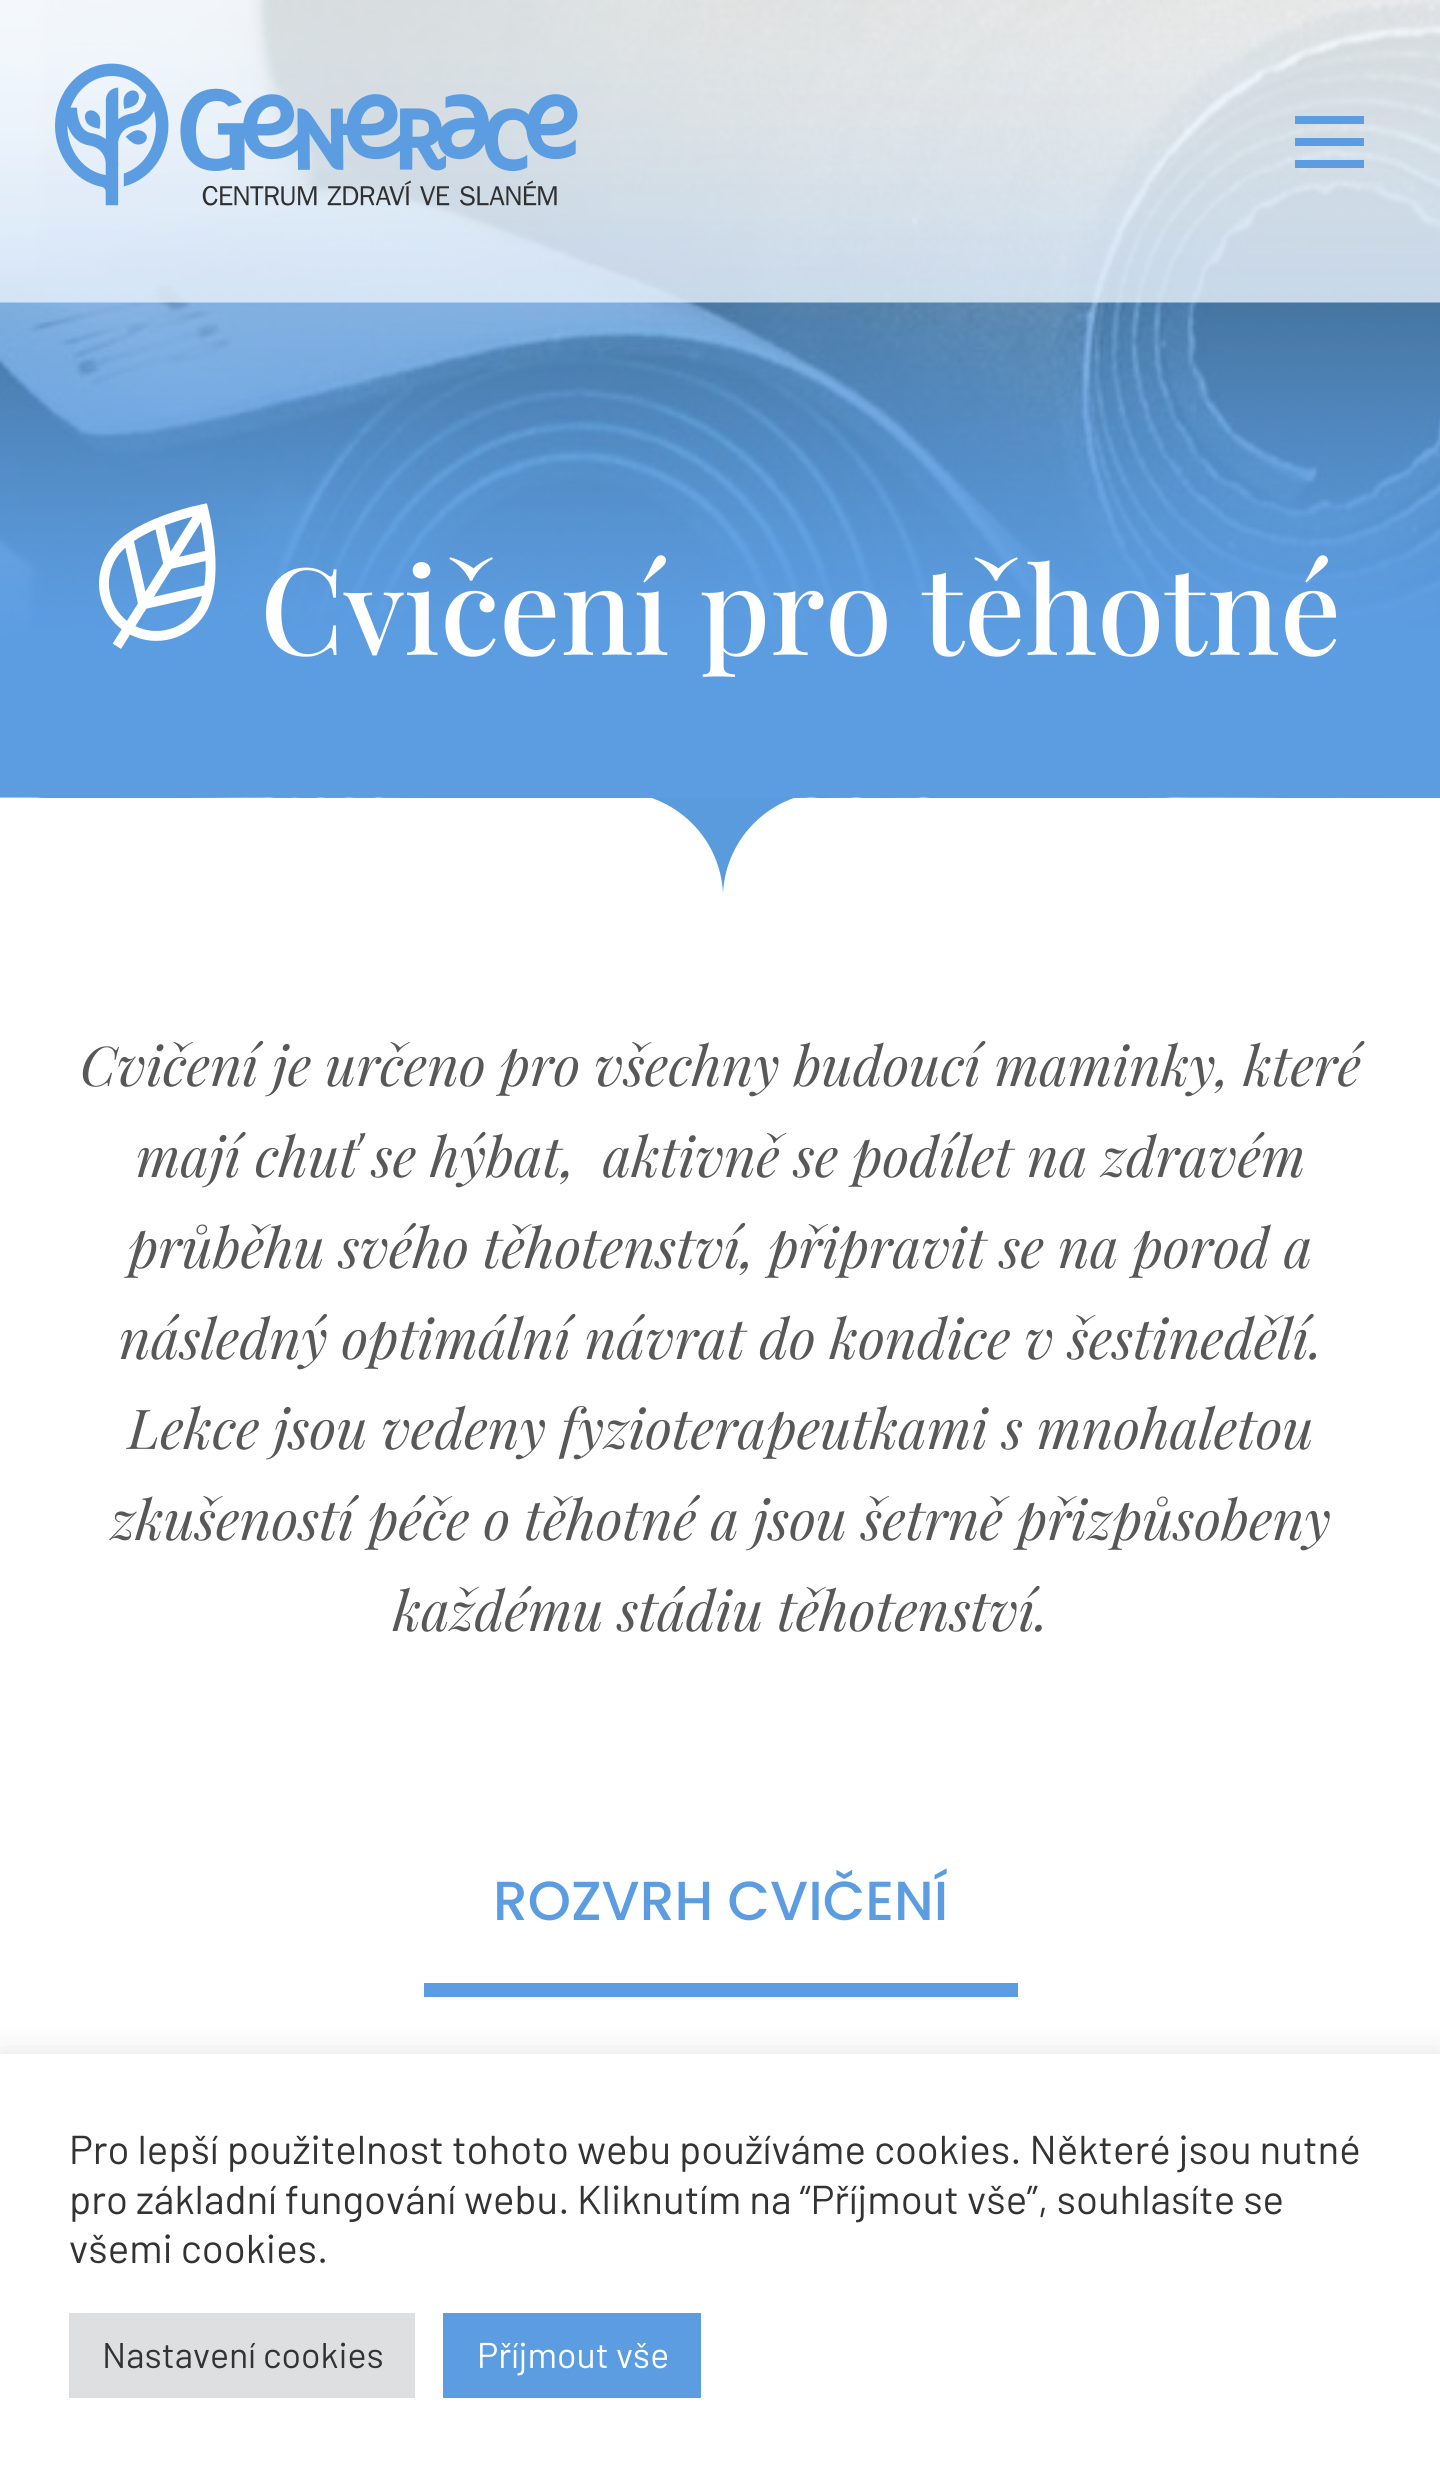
#include <cairo.h>
#include <math.h>
#include <stddef.h>


static void rgb(cairo_t *cr, int r, int g, int b)
{
	cairo_set_source_rgb(cr, r / 255.0, g / 255.0, b / 255.0);
}

static void face(cairo_t *cr, const char *family, double size, int italic, int bold)
{
	cairo_select_font_face(cr, family, italic ? CAIRO_FONT_SLANT_ITALIC : CAIRO_FONT_SLANT_NORMAL,
		bold ? CAIRO_FONT_WEIGHT_BOLD : CAIRO_FONT_WEIGHT_NORMAL);
	cairo_set_font_size(cr, size);
}

static void label(cairo_t *cr, double x, double y, const char *s)
{
	cairo_move_to(cr, x, y);
	cairo_show_text(cr, s);
}

static void rect(cairo_t *cr, double x, double y, double w, double h)
{
	cairo_rectangle(cr, x, y, w, h);
	cairo_fill(cr);
}

static void rrect(cairo_t *cr, double x, double y, double w, double h, double r)
{
	cairo_new_sub_path(cr);
	cairo_arc(cr, x + w - r, y + h - r, r, 0, M_PI / 2);
	cairo_arc(cr, x + r, y + h - r, r, M_PI / 2, M_PI);
	cairo_arc(cr, x + r, y + r, r, M_PI, 1.5 * M_PI);
	cairo_arc(cr, x + w - r, y + r, r, 1.5 * M_PI, 2 * M_PI);
	cairo_close_path(cr);
}

static void soft_shadow(cairo_t *cr, double x, double y, double w, double h, double r, double blur, double alpha)
{
	cairo_push_group_with_content(cr, CAIRO_CONTENT_ALPHA);
	cairo_set_operator(cr, CAIRO_OPERATOR_SOURCE);
	for (int i = 15; i >= -15 && fmin(w, h) + blur * i / 3 > 0; i -= 2) {
		double e = blur * i / 6;
		cairo_set_source_rgba(cr, 0, 0, 0, alpha * erfc((i - 1) / 8.5) / 2);
		rrect(cr, x - e, y - e, w + 2 * e, h + 2 * e, fmax(0, fmin(r + e + blur * .6, fmin(w, h) / 2 + e)));
		cairo_fill(cr);
	}
	cairo_pattern_t *soft = cairo_pop_group(cr);
	cairo_mask(cr, soft);
	cairo_pattern_destroy(soft);
}

static void image(cairo_t *cr, const char *path, double x, double y, double w, double h)
{
	cairo_surface_t *image = cairo_image_surface_create_from_png(path);
	cairo_save(cr);
	cairo_set_source_surface(cr, image, x, y);
	cairo_rectangle(cr, x, y, w, h);
	cairo_fill(cr);
	cairo_restore(cr);
	cairo_surface_destroy(image);
}

static void draw(cairo_t *cr) {
	rgb(cr, 255, 255, 255);
	cairo_paint(cr);
	image(cr, "image2.png", 0, 0, 1440, 798);
	rgb(cr, 90, 155, 221);
	cairo_new_path(cr);
	cairo_move_to(cr, 723, 893);
	cairo_curve_to(cr, 726, 836, 773, 792, 829, 792);
	cairo_line_to(cr, 616, 792);
	cairo_curve_to(cr, 673, 792, 720, 836, 723, 893);
	cairo_close_path(cr);
	cairo_fill(cr);
	image(cr, "image3.png", 0, 0, 1440, 798);
	image(cr, "image0.png", 0, 0, 1440, 303);
	image(cr, "image1.png", 55, 63, 523, 143);
	rgb(cr, 92, 157, 226);
	rect(cr, 1295, 116, 69, 8);
	rect(cr, 1295, 138, 69, 8);
	rect(cr, 1295, 160, 69, 8);
	image(cr, "image4.png", 99, 503, 117, 146);
	face(cr, "Playfair Display Medium", 121, 0, 0);
	rgb(cr, 255, 255, 255);
	label(cr, 260, 655, "Cvičení pro těhotné");
	face(cr, "Playfair Display", 55, 1, 0);
	rgb(cr, 88, 88, 88);
	label(cr, 80, 1086, "Cvičení je určeno pro všechny budoucí maminky, které");
	label(cr, 136, 1177, "mají chuť se hýbat,  aktivně se podílet na zdravém");
	label(cr, 128, 1268, "průběhu svého těhotenství, připravit se na porod a");
	label(cr, 119, 1359, "následný optimální návrat do kondice v šestinedělí.");
	label(cr, 128, 1449, "Lekce jsou vedeny fyzioterapeutkami s mnohaletou");
	label(cr, 111, 1540, "zkušeností péče o těhotné a jsou šetrně přizpůsobeny");
	label(cr, 393, 1631, "každému stádiu těhotenství.");
	rgb(cr, 92, 157, 226);
	rect(cr, 424, 1983, 594, 14);
	face(cr, "Poppins Medium", 55, 0, 0);
	label(cr, 493, 1920, "ROZVRH CVIČENÍ");
	rgb(cr, 172, 171, 171);
	soft_shadow(cr, 0, 2052, 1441, 426, 0, 14, 0.3);
	rgb(cr, 255, 255, 255);
	rect(cr, 0, 2054, 1440, 425);
	face(cr, "Barlow", 40.3, 0, 0);
	rgb(cr, 51, 51, 51);
	label(cr, 69, 2164, "Pro lepší použitelnost tohoto webu používáme cookies. Některé jsou nutné");
	label(cr, 69, 2214, "pro základní fungování webu.");
	label(cr, 577, 2214, "Kliknutím na “Příjmout vše”, souhlasíte se");
	label(cr, 69, 2263, "všemi cookies.");
	rgb(cr, 222, 223, 224);
	rect(cr, 69, 2313, 346, 85);
	face(cr, "Barlow", 35.75, 0, 0);
	rgb(cr, 51, 51, 51);
	label(cr, 102, 2368, "Nastavení cookies");
	rgb(cr, 92, 157, 226);
	rect(cr, 443, 2313, 258, 85);
	rgb(cr, 255, 255, 255);
	label(cr, 477, 2368, "Příjmout vše");
}

int main(void) {
	cairo_surface_t *surface = cairo_image_surface_create(CAIRO_FORMAT_RGB24, 1440, 2479);
	cairo_t *cr = cairo_create(surface);
	cairo_font_options_t *options = cairo_font_options_create();
	cairo_font_options_set_hint_metrics(options, CAIRO_HINT_METRICS_OFF);
	cairo_font_options_set_hint_style(options, CAIRO_HINT_STYLE_NONE);
	cairo_set_font_options(cr, options);
	cairo_set_miter_limit(cr, 4);
	draw(cr);
	cairo_surface_write_to_png(surface, "render.png");
	cairo_font_options_destroy(options);
	cairo_destroy(cr);
	cairo_surface_destroy(surface);
	return 0;
}
